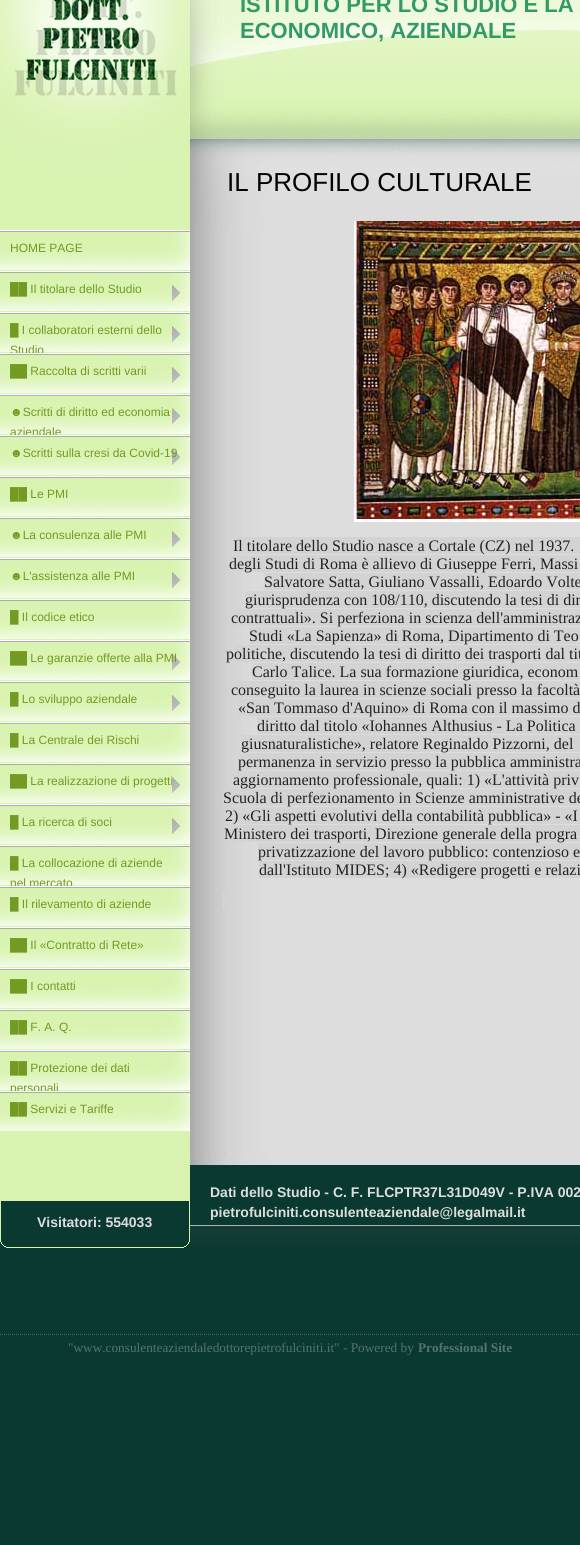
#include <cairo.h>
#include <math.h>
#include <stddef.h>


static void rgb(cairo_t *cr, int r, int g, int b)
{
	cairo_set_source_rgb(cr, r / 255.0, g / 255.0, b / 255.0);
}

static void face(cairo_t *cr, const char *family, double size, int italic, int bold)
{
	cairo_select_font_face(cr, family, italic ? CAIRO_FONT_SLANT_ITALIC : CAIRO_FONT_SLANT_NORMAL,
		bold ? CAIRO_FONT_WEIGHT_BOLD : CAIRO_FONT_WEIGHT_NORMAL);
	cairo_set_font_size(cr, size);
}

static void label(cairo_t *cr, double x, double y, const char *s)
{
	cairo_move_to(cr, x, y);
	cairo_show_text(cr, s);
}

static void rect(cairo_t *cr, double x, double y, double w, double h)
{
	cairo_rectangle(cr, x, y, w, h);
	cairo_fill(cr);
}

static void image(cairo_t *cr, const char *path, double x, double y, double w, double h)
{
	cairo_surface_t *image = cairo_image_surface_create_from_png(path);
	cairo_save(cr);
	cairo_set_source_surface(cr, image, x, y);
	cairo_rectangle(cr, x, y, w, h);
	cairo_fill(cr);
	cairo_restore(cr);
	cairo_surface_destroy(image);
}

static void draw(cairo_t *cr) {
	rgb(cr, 9, 57, 48);
	cairo_paint(cr);
	image(cr, "image0.png", 0, 0, 580, 230);
	face(cr, "Liberation Sans", 22, 0, 1);
	rgb(cr, 51, 153, 102);
	label(cr, 240, 12, "ISTITUTO PER LO STUDIO E LA");
	label(cr, 240, 38, "ECONOMICO, AZIENDALE");
	image(cr, "image1.png", 0, 230, 580, 922);
	image(cr, "image2.png", 0, 230, 190, 40);
	face(cr, "Liberation Sans", 12, 0, 0);
	rgb(cr, 115, 154, 35);
	label(cr, 10, 252, "HOME PAGE");
	image(cr, "image3.png", 0, 271, 190, 40);
	label(cr, 10, 293, "██ Il titolare dello Studio");
	image(cr, "image3.png", 0, 312, 190, 40);
	label(cr, 10, 334, "█ I collaboratori esterni dello");
	label(cr, 10, 354, "Studio");
	image(cr, "image3.png", 0, 353, 190, 40);
	label(cr, 10, 375, "██ Raccolta di scritti varii");
	image(cr, "image3.png", 0, 394, 190, 40);
	label(cr, 10, 416, "☻Scritti di diritto ed economia");
	label(cr, 10, 436, "aziendale");
	image(cr, "image3.png", 0, 435, 190, 40);
	label(cr, 10, 457, "☻Scritti sulla cresi da Covid-19");
	image(cr, "image2.png", 0, 476, 190, 40);
	label(cr, 10, 498, "██ Le PMI");
	image(cr, "image3.png", 0, 517, 190, 40);
	label(cr, 10, 539, "☻La consulenza alle PMI");
	image(cr, "image3.png", 0, 558, 190, 40);
	label(cr, 10, 580, "☻L'assistenza alle PMI");
	image(cr, "image2.png", 0, 599, 190, 40);
	label(cr, 10, 621, "█ Il codice etico");
	image(cr, "image3.png", 0, 640, 190, 40);
	label(cr, 10, 662, "██ Le garanzie offerte alla PMI");
	image(cr, "image3.png", 0, 681, 190, 40);
	label(cr, 10, 703, "█ Lo sviluppo aziendale");
	image(cr, "image2.png", 0, 722, 190, 40);
	label(cr, 10, 744, "█ La Centrale dei Rischi");
	image(cr, "image3.png", 0, 763, 190, 40);
	label(cr, 10, 785, "██ La realizzazione di progetti");
	image(cr, "image3.png", 0, 804, 190, 40);
	label(cr, 10, 826, "█ La ricerca di soci");
	image(cr, "image2.png", 0, 845, 190, 40);
	label(cr, 10, 867, "█ La collocazione di aziende");
	label(cr, 10, 887, "nel mercato");
	image(cr, "image2.png", 0, 886, 190, 40);
	label(cr, 10, 908, "█ Il rilevamento di aziende");
	image(cr, "image2.png", 0, 927, 190, 40);
	label(cr, 10, 949, "██ Il «Contratto di Rete»");
	image(cr, "image2.png", 0, 968, 190, 40);
	label(cr, 10, 990, "██ I contatti");
	image(cr, "image2.png", 0, 1009, 190, 40);
	label(cr, 10, 1031, "██ F. A. Q.");
	image(cr, "image2.png", 0, 1050, 190, 40);
	label(cr, 10, 1072, "██ Protezione dei dati");
	label(cr, 10, 1092, "personali");
	image(cr, "image2.png", 0, 1091, 190, 40);
	label(cr, 10, 1113, "██ Servizi e Tariffe");
	face(cr, "Liberation Sans", 26, 0, 0);
	rgb(cr, 1, 1, 1);
	label(cr, 227, 191, "IL PROFILO CULTURALE");
	image(cr, "image4.png", 354, 221, 226, 298);
	rgb(cr, 255, 255, 255);
	rect(cr, 354, 519, 226, 3);
	rgb(cr, 211, 211, 211);
	rect(cr, 235, 537, 345, 17);
	face(cr, "Liberation Serif", 16, 0, 0);
	rgb(cr, 34, 34, 34);
	label(cr, 233, 551, "Il titolare dello Studio nasce a Cortale (CZ) nel 1937.");
	rgb(cr, 211, 211, 211);
	rect(cr, 235, 555, 345, 17);
	rgb(cr, 34, 34, 34);
	label(cr, 229, 569, "degli Studi di Roma è allievo di Giuseppe Ferri, Massi");
	rgb(cr, 211, 211, 211);
	rect(cr, 264, 573, 316, 17);
	rgb(cr, 34, 34, 34);
	label(cr, 264, 587, "Salvatore Satta, Giuliano Vassalli, Edoardo Volte");
	rgb(cr, 211, 211, 211);
	rect(cr, 245, 591, 335, 17);
	rgb(cr, 34, 34, 34);
	label(cr, 245, 605, "giurisprudenza con 108/110, discutendo la tesi di dir");
	rgb(cr, 211, 211, 211);
	rect(cr, 235, 609, 345, 17);
	rgb(cr, 34, 34, 34);
	label(cr, 231, 623, "contrattuali». Si perfeziona in scienza dell'amministraz");
	rgb(cr, 211, 211, 211);
	rect(cr, 249, 627, 331, 17);
	rgb(cr, 34, 34, 34);
	label(cr, 249, 641, "Studi «La Sapienza» di Roma, Dipartimento di Teo");
	rgb(cr, 211, 211, 211);
	rect(cr, 235, 645, 345, 17);
	rgb(cr, 34, 34, 34);
	label(cr, 226, 659, "politiche, discutendo la tesi di diritto dei trasporti dal tit");
	rgb(cr, 211, 211, 211);
	rect(cr, 252, 663, 328, 17);
	rgb(cr, 34, 34, 34);
	label(cr, 252, 677, "Carlo Talice. La sua formazione giuridica, econom");
	rgb(cr, 211, 211, 211);
	rect(cr, 235, 681, 345, 17);
	rgb(cr, 34, 34, 34);
	label(cr, 231, 695, "conseguito la laurea in scienze sociali presso la facoltà");
	rgb(cr, 211, 211, 211);
	rect(cr, 239, 699, 341, 17);
	rgb(cr, 34, 34, 34);
	label(cr, 238, 713, "«San Tommaso d'Aquino» di Roma con il massimo d");
	rgb(cr, 211, 211, 211);
	rect(cr, 257, 717, 323, 17);
	rgb(cr, 34, 34, 34);
	label(cr, 257, 731, "diritto dal titolo «Iohannes Althusius - La Politica");
	rgb(cr, 211, 211, 211);
	rect(cr, 241, 735, 339, 17);
	rgb(cr, 34, 34, 34);
	label(cr, 241, 749, "giusnaturalistiche», relatore Reginaldo Pizzorni, del");
	rgb(cr, 211, 211, 211);
	rect(cr, 239, 753, 341, 17);
	rgb(cr, 34, 34, 34);
	label(cr, 238, 767, "permanenza in servizio presso la pubblica amministra");
	rgb(cr, 211, 211, 211);
	rect(cr, 235, 771, 345, 17);
	rgb(cr, 34, 34, 34);
	label(cr, 233, 785, "aggiornamento professionale, quali: 1) «L'attività priv");
	rgb(cr, 211, 211, 211);
	rect(cr, 223, 789, 357, 17);
	rgb(cr, 34, 34, 34);
	label(cr, 223, 803, "Scuola di perfezionamento in Scienze amministrative de");
	rgb(cr, 211, 211, 211);
	rect(cr, 225, 807, 355, 17);
	rgb(cr, 34, 34, 34);
	label(cr, 225, 821, "2) «Gli aspetti evolutivi della contabilità pubblica» - «I");
	rgb(cr, 211, 211, 211);
	rect(cr, 224, 825, 356, 17);
	rgb(cr, 34, 34, 34);
	label(cr, 224, 839, "Ministero dei trasporti, Direzione generale della progra");
	rgb(cr, 211, 211, 211);
	rect(cr, 258, 843, 322, 17);
	rgb(cr, 34, 34, 34);
	label(cr, 258, 857, "privatizzazione del lavoro pubblico: contenzioso e");
	rgb(cr, 211, 211, 211);
	rect(cr, 259, 861, 321, 17);
	rgb(cr, 34, 34, 34);
	label(cr, 259, 875, "dall'Istituto MIDES; 4) «Redigere progetti e relazi");
	rgb(cr, 211, 211, 211);
	rect(cr, 222, 893, 4, 16);
	image(cr, "image5.png", 0, 1152, 580, 96);
	face(cr, "Liberation Sans", 14, 0, 1);
	rgb(cr, 221, 221, 221);
	label(cr, 210, 1197, "Dati dello Studio - C. F. FLCPTR37L31D049V - P.IVA 002");
	label(cr, 210, 1217, "pietrofulciniti.consulenteaziendale@legalmail.it");
	label(cr, 37, 1227, "Visitatori: 554033");
	cairo_new_path(cr);
	cairo_move_to(cr, 0, 1334.5);
	cairo_line_to(cr, 580, 1334.5);
	rgb(cr, 68, 102, 95);
	cairo_set_line_width(cr, 1);
	cairo_set_dash(cr, (double[]){1, 1}, 2, 0);
	cairo_stroke(cr);
	face(cr, "Liberation Serif", 13.3, 0, 0);
	rgb(cr, 83, 116, 110);
	label(cr, 68, 1352, "\"www.consulenteaziendaledottorepietrofulciniti.it\" - Powered by");
	face(cr, "Liberation Serif", 13.3, 0, 1);
	label(cr, 418, 1352, "Professional Site");
}

int main(void) {
	cairo_surface_t *surface = cairo_image_surface_create(CAIRO_FORMAT_RGB24, 580, 1545);
	cairo_t *cr = cairo_create(surface);
	cairo_font_options_t *options = cairo_font_options_create();
	cairo_font_options_set_hint_metrics(options, CAIRO_HINT_METRICS_OFF);
	cairo_font_options_set_hint_style(options, CAIRO_HINT_STYLE_NONE);
	cairo_set_font_options(cr, options);
	cairo_set_miter_limit(cr, 4);
	draw(cr);
	cairo_surface_write_to_png(surface, "render.png");
	cairo_font_options_destroy(options);
	cairo_destroy(cr);
	cairo_surface_destroy(surface);
	return 0;
}
